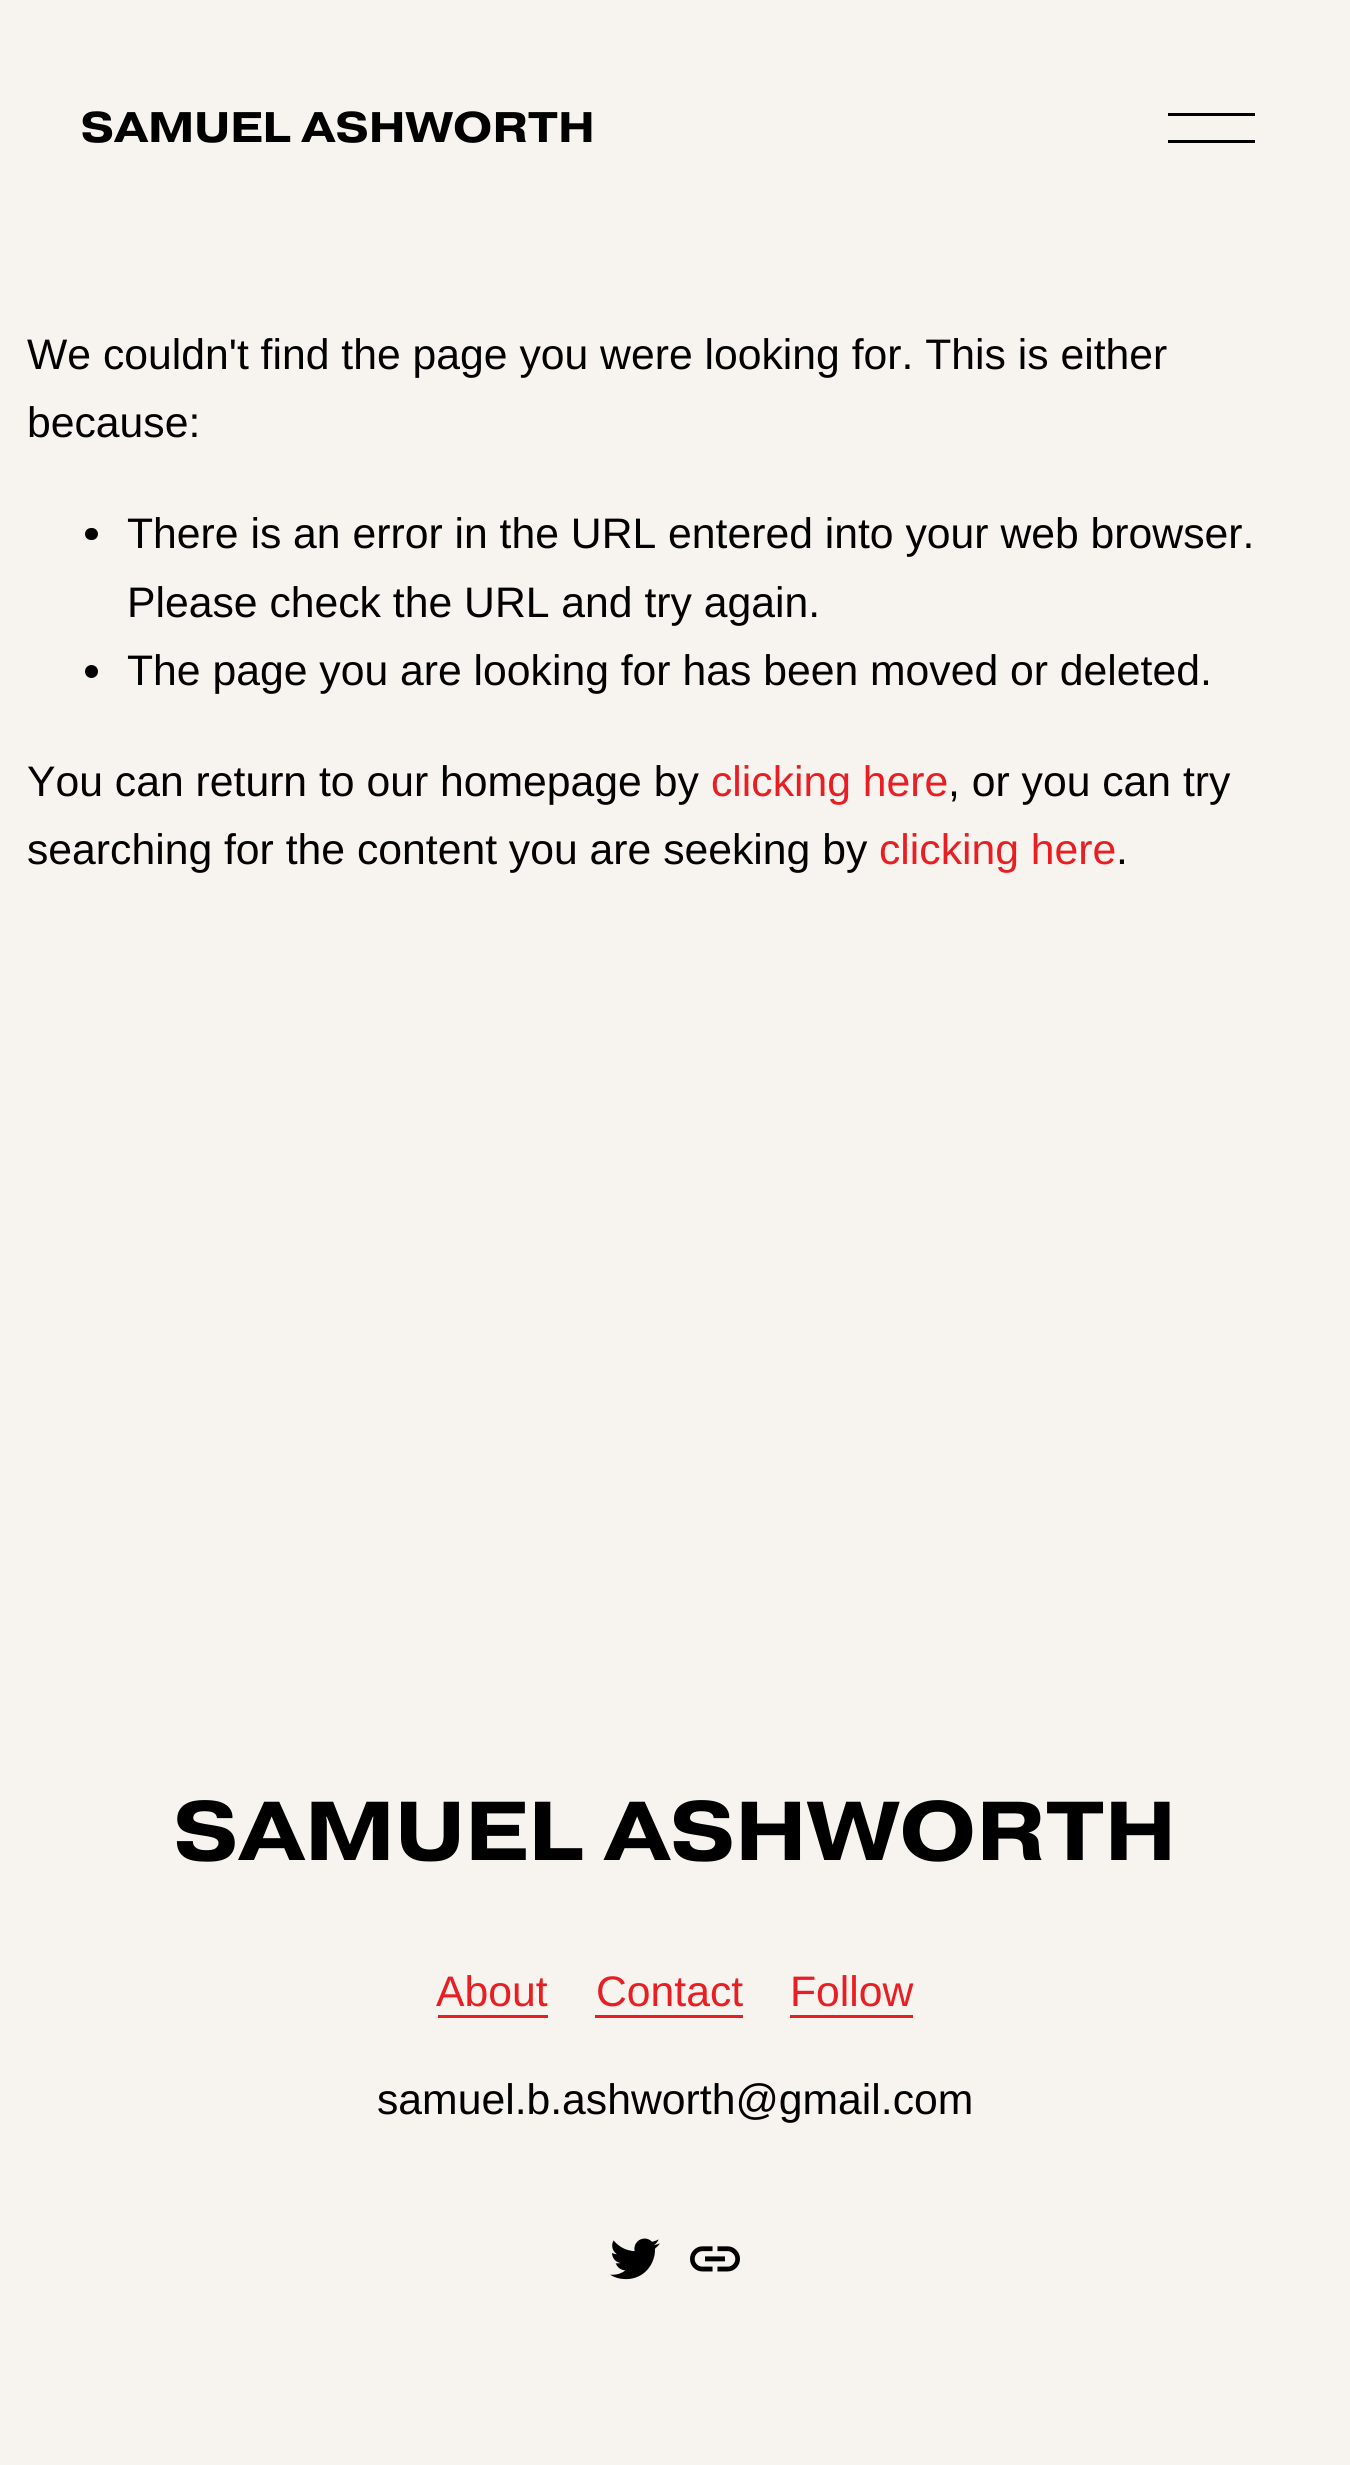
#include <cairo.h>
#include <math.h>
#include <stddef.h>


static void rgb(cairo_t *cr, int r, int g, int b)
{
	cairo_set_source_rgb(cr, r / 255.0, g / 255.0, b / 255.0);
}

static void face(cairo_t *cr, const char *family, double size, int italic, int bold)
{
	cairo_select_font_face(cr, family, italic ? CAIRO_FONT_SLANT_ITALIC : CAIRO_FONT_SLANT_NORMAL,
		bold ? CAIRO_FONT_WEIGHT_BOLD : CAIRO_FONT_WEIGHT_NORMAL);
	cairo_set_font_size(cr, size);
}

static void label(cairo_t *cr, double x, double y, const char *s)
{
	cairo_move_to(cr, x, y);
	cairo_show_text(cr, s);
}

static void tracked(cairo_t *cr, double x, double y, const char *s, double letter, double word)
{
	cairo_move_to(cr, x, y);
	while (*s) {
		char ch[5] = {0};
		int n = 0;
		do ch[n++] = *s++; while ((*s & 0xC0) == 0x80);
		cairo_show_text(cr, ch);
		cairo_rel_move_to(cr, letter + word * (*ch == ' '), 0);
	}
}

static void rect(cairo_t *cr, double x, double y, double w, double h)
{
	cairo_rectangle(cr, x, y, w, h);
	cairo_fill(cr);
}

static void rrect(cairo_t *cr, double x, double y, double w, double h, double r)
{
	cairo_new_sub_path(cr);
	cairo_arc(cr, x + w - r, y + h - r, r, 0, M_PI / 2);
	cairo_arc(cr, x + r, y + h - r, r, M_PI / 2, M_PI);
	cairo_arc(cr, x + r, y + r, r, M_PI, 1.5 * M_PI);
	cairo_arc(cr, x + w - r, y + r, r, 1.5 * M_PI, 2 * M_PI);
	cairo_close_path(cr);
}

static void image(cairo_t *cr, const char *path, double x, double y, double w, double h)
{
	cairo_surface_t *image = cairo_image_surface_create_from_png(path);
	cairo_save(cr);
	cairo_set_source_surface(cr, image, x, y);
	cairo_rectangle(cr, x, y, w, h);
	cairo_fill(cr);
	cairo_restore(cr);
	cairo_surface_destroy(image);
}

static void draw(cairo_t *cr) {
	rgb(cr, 247, 244, 240);
	cairo_paint(cr);
	face(cr, "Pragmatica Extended", 42.7, 0, 1);
	rgb(cr, 0, 0, 0);
	tracked(cr, 81, 142, "SAMUEL ASHWORTH", 0.4, 0);
	rect(cr, 1168, 113, 87, 3);
	rect(cr, 1168, 140, 87, 3);
	face(cr, "Liberation Sans", 42.7, 0, 0);
	label(cr, 27, 369, "We couldn't find the page you were looking for. This is either");
	label(cr, 27, 437, "because:");
	rrect(cr, 85, 528, 13, 12, 6);
	cairo_fill(cr);
	label(cr, 127, 548, "There is an error in the URL entered into your web browser.");
	label(cr, 127, 617, "Please check the URL and try again.");
	cairo_new_path(cr);
	cairo_arc(cr, 91.5, 671.5, 6.5, 0, 2 * M_PI);
	cairo_fill(cr);
	label(cr, 127, 685, "The page you are looking for has been moved or deleted.");
	label(cr, 27, 796, "You can return to our homepage by");
	rgb(cr, 232, 30, 34);
	label(cr, 711, 796, "clicking here");
	rgb(cr, 0, 0, 0);
	label(cr, 948, 796, ", or you can try");
	label(cr, 27, 864, "searching for the content you are seeking by");
	rgb(cr, 232, 30, 34);
	label(cr, 879, 864, "clicking here");
	rgb(cr, 0, 0, 0);
	label(cr, 1116, 864, ".");
	face(cr, "Pragmatica Extended", 83.25, 0, 1);
	tracked(cr, 174, 1860, "SAMUEL ASHWORTH", 0.8, 0);
	face(cr, "Liberation Sans", 42.7, 0, 0);
	rgb(cr, 232, 30, 34);
	label(cr, 436, 2006, "About");
	rect(cr, 438, 2015, 110, 3);
	label(cr, 596, 2006, "Contact");
	rect(cr, 595, 2015, 148, 3);
	label(cr, 790, 2006, "Follow");
	rect(cr, 790, 2015, 123, 3);
	rgb(cr, 0, 0, 0);
	label(cr, 377, 2114, "samuel.b.ashworth@gmail.com");
	image(cr, "image0.png", 610, 2238, 50, 42);
	image(cr, "image1.png", 690, 2246, 50, 26);
}

int main(void) {
	cairo_surface_t *surface = cairo_image_surface_create(CAIRO_FORMAT_RGB24, 1350, 2465);
	cairo_t *cr = cairo_create(surface);
	cairo_font_options_t *options = cairo_font_options_create();
	cairo_font_options_set_hint_metrics(options, CAIRO_HINT_METRICS_OFF);
	cairo_font_options_set_hint_style(options, CAIRO_HINT_STYLE_NONE);
	cairo_set_font_options(cr, options);
	cairo_set_miter_limit(cr, 4);
	draw(cr);
	cairo_surface_write_to_png(surface, "render.png");
	cairo_font_options_destroy(options);
	cairo_destroy(cr);
	cairo_surface_destroy(surface);
	return 0;
}
